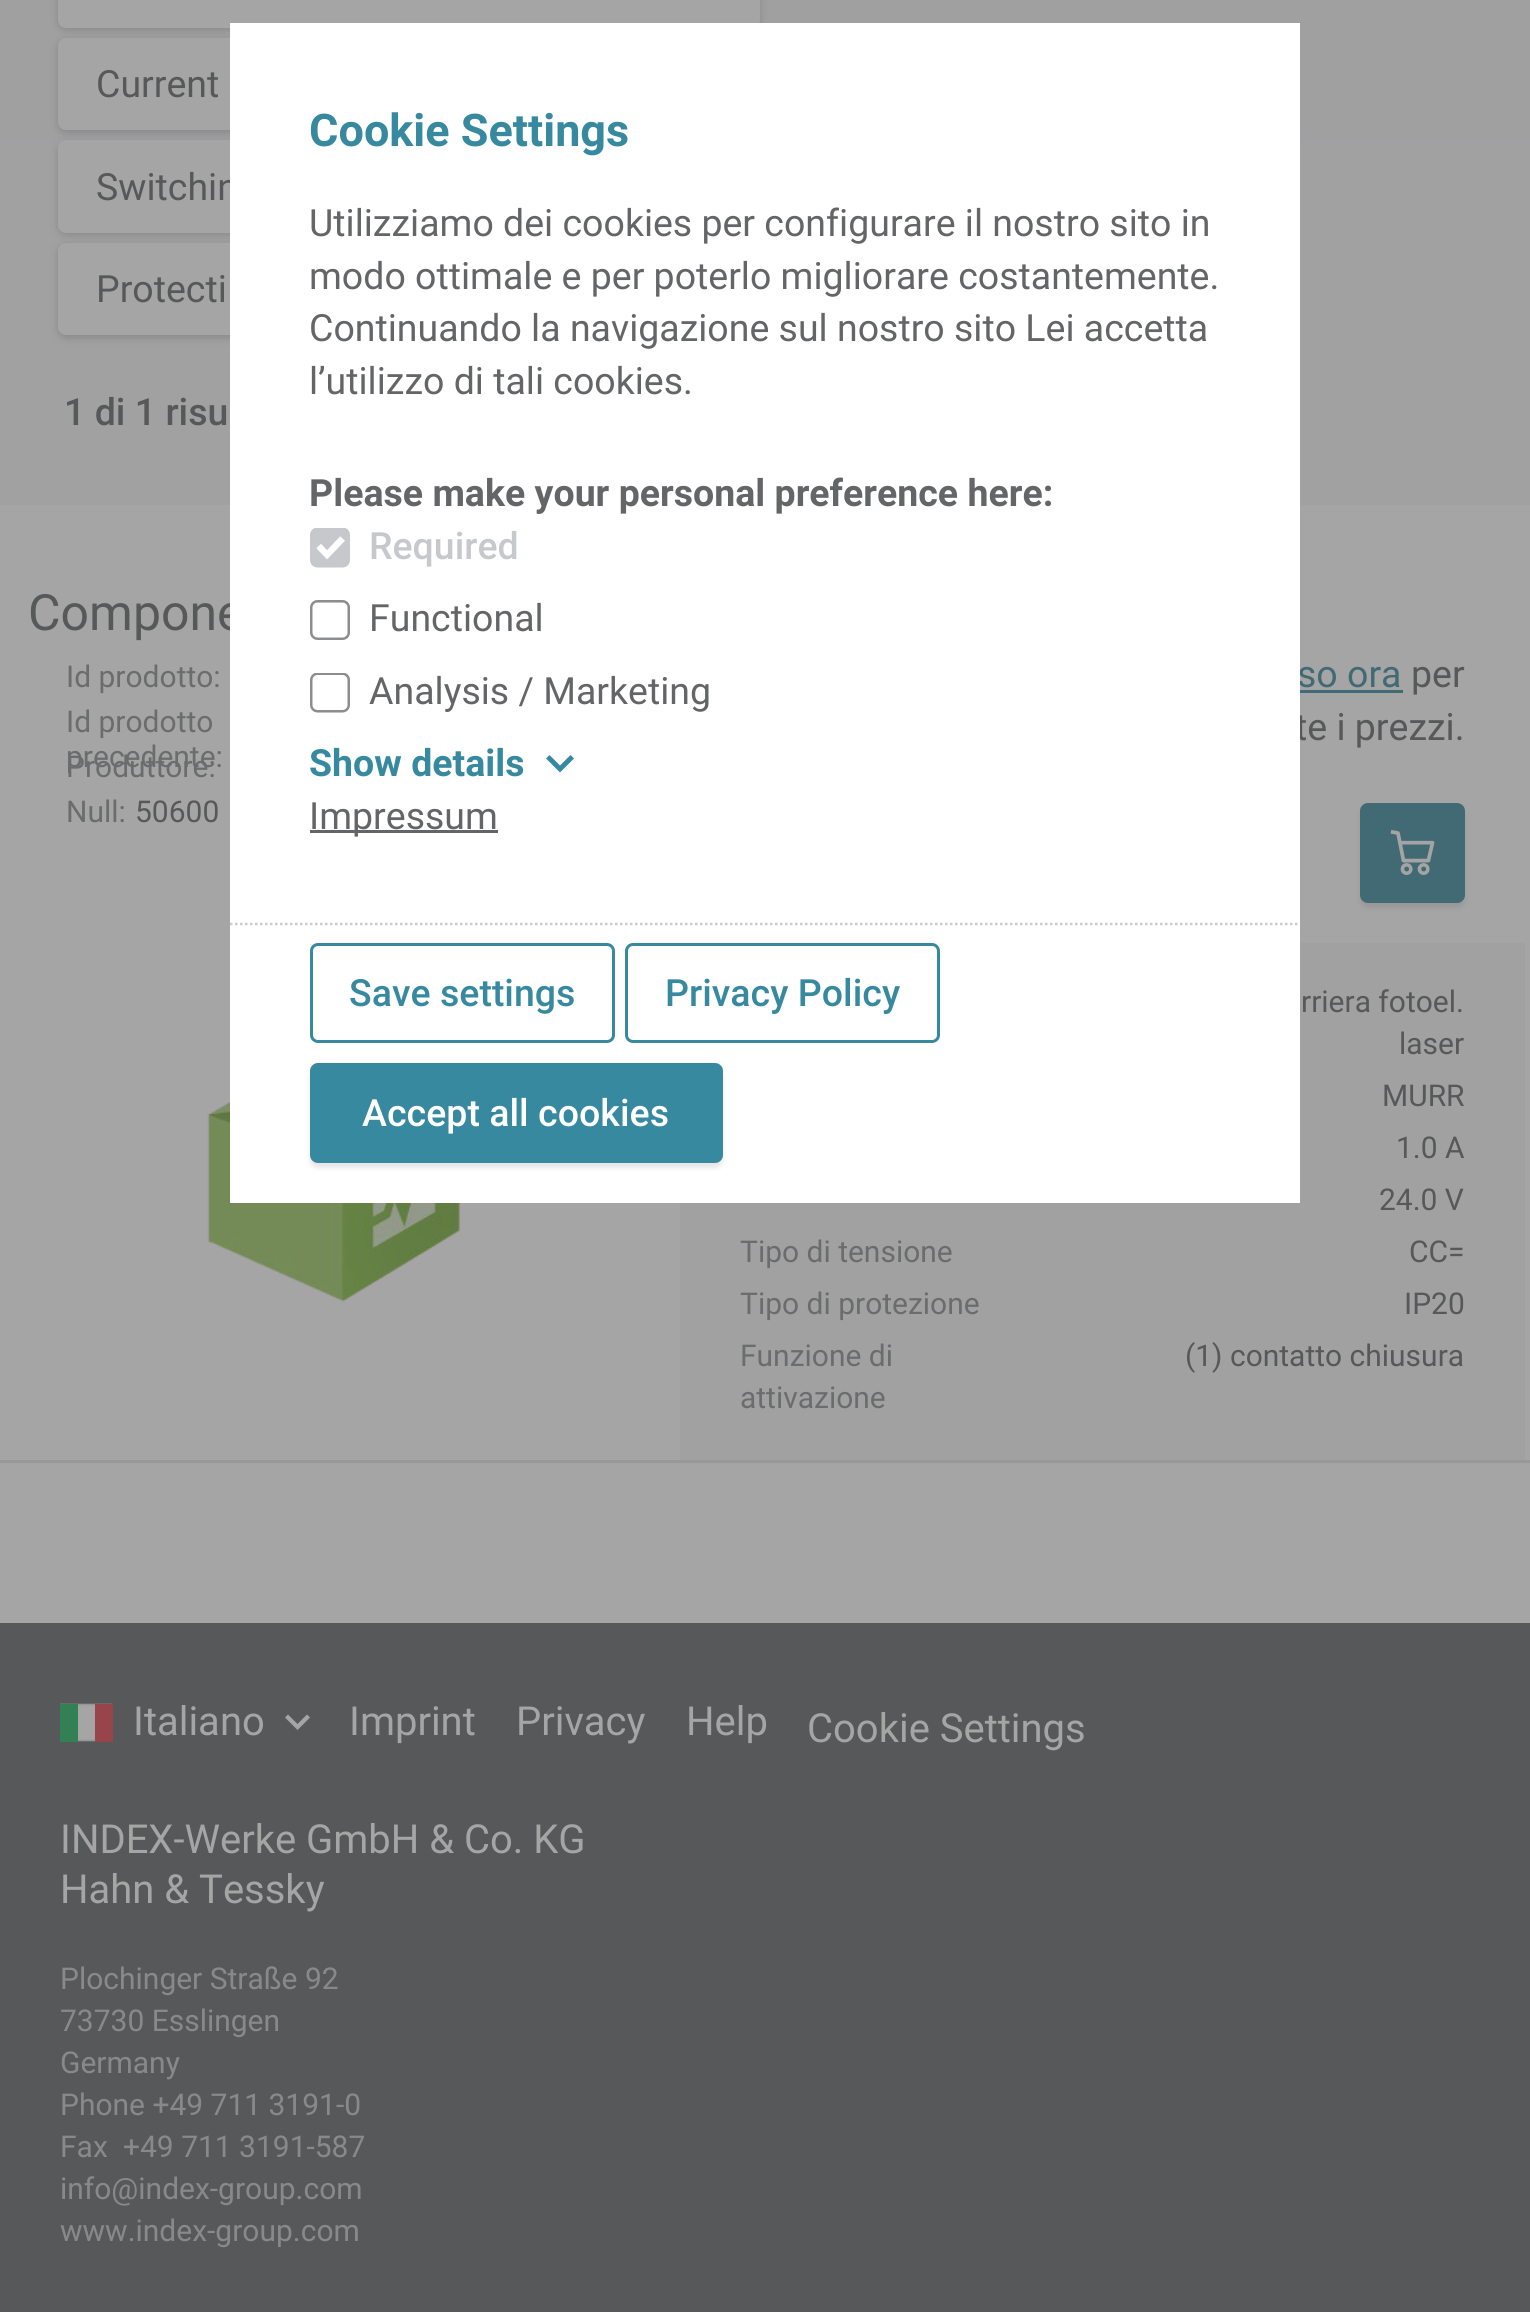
#include <cairo.h>
#include <math.h>
#include <stddef.h>


static void rgb(cairo_t *cr, int r, int g, int b)
{
	cairo_set_source_rgb(cr, r / 255.0, g / 255.0, b / 255.0);
}

static void face(cairo_t *cr, const char *family, double size, int italic, int bold)
{
	cairo_select_font_face(cr, family, italic ? CAIRO_FONT_SLANT_ITALIC : CAIRO_FONT_SLANT_NORMAL,
		bold ? CAIRO_FONT_WEIGHT_BOLD : CAIRO_FONT_WEIGHT_NORMAL);
	cairo_set_font_size(cr, size);
}

static void label(cairo_t *cr, double x, double y, const char *s)
{
	cairo_move_to(cr, x, y);
	cairo_show_text(cr, s);
}

static void rect(cairo_t *cr, double x, double y, double w, double h)
{
	cairo_rectangle(cr, x, y, w, h);
	cairo_fill(cr);
}

static void rrect(cairo_t *cr, double x, double y, double w, double h, double r)
{
	cairo_new_sub_path(cr);
	cairo_arc(cr, x + w - r, y + h - r, r, 0, M_PI / 2);
	cairo_arc(cr, x + r, y + h - r, r, M_PI / 2, M_PI);
	cairo_arc(cr, x + r, y + r, r, M_PI, 1.5 * M_PI);
	cairo_arc(cr, x + w - r, y + r, r, 1.5 * M_PI, 2 * M_PI);
	cairo_close_path(cr);
}

static void soft_shadow(cairo_t *cr, double x, double y, double w, double h, double r, double blur, double alpha)
{
	cairo_push_group_with_content(cr, CAIRO_CONTENT_ALPHA);
	cairo_set_operator(cr, CAIRO_OPERATOR_SOURCE);
	for (int i = 15; i >= -15 && fmin(w, h) + blur * i / 3 > 0; i -= 2) {
		double e = blur * i / 6;
		cairo_set_source_rgba(cr, 0, 0, 0, alpha * erfc((i - 1) / 8.5) / 2);
		rrect(cr, x - e, y - e, w + 2 * e, h + 2 * e, fmax(0, fmin(r + e + blur * .6, fmin(w, h) / 2 + e)));
		cairo_fill(cr);
	}
	cairo_pattern_t *soft = cairo_pop_group(cr);
	cairo_mask(cr, soft);
	cairo_pattern_destroy(soft);
}

static void image(cairo_t *cr, const char *path, double x, double y, double w, double h)
{
	cairo_surface_t *image = cairo_image_surface_create_from_png(path);
	cairo_save(cr);
	cairo_set_source_surface(cr, image, x, y);
	cairo_rectangle(cr, x, y, w, h);
	cairo_fill(cr);
	cairo_restore(cr);
	cairo_surface_destroy(image);
}

static void draw(cairo_t *cr) {
	cairo_pattern_t *gradient;
	rgb(cr, 255, 255, 255);
	cairo_paint(cr);
	gradient = cairo_pattern_create_linear(765, -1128, 765, 1185);
	cairo_pattern_add_color_stop_rgba(gradient, 0, 0.561, 0.561, 0.561, 1);
	cairo_pattern_add_color_stop_rgba(gradient, 0.19, 0.62, 0.62, 0.624, 1);
	cairo_pattern_add_color_stop_rgba(gradient, 0.61, 0.631, 0.631, 0.635, 1);
	cairo_pattern_add_color_stop_rgba(gradient, 1, 0.631, 0.631, 0.635, 1);
	cairo_set_source(cr, gradient);
	cairo_pattern_destroy(gradient);
	rect(cr, 0, 0, 1530, 505);
	rgb(cr, 37, 37, 37);
	soft_shadow(cr, 58, -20, 702, 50, 8, 4, 0.2);
	rgb(cr, 165, 165, 165);
	rrect(cr, 58, -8, 702, 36, 8);
	cairo_fill(cr);
	rgb(cr, 37, 37, 37);
	soft_shadow(cr, 58, 40, 702, 93, 8, 4, 0.2);
	rgb(cr, 165, 165, 165);
	rrect(cr, 58, 38, 702, 92, 8);
	cairo_fill(cr);
	face(cr, "Roboto", 37.5, 0, 0);
	rgb(cr, 87, 88, 89);
	label(cr, 96, 97, "Current");
	rgb(cr, 37, 37, 37);
	soft_shadow(cr, 58, 143, 702, 92, 8, 4, 0.2);
	rgb(cr, 165, 165, 165);
	rrect(cr, 58, 140, 702, 93, 8);
	cairo_fill(cr);
	rgb(cr, 87, 88, 89);
	label(cr, 96, 200, "Switchin");
	rgb(cr, 37, 37, 37);
	soft_shadow(cr, 58, 245, 702, 93, 8, 4, 0.2);
	rgb(cr, 165, 165, 165);
	rrect(cr, 58, 243, 702, 92, 8);
	cairo_fill(cr);
	rgb(cr, 87, 88, 89);
	label(cr, 96, 302, "Protecti");
	face(cr, "Roboto Medium", 37.5, 0, 0);
	label(cr, 64, 425, "1 di 1 risu");
	rgb(cr, 165, 165, 165);
	rect(cr, 0, 505, 1530, 955);
	rgb(cr, 152, 152, 152);
	rect(cr, 0, 1460, 1530, 3);
	face(cr, "Roboto", 50, 0, 0);
	rgb(cr, 87, 88, 89);
	label(cr, 28, 630, "Compone");
	face(cr, "Roboto", 30, 0, 0);
	rgb(cr, 107, 108, 109);
	label(cr, 66, 687, "Id prodotto:");
	label(cr, 66, 732, "Id prodotto");
	label(cr, 66, 767, "precedente:");
	label(cr, 66, 777, "Produttore:");
	label(cr, 66, 822, "Null:");
	rgb(cr, 87, 88, 89);
	label(cr, 135, 822, "50600");
	face(cr, "Roboto", 37.5, 0, 0);
	rgb(cr, 65, 106, 117);
	label(cr, 1297, 687, "so ora");
	rect(cr, 1300, 690, 103, 3);
	rgb(cr, 87, 88, 89);
	label(cr, 1411, 687, "per");
	label(cr, 1295, 740, "te i prezzi.");
	rgb(cr, 37, 37, 37);
	soft_shadow(cr, 1360, 808, 105, 100, 8, 2.5, 0.1);
	rgb(cr, 65, 106, 117);
	rrect(cr, 1360, 803, 105, 100, 8);
	cairo_fill(cr);
	image(cr, "image0.png", 1390, 830, 45, 45);
	image(cr, "image1.png", 207, 1101, 253, 201);
	rgb(cr, 161, 161, 162);
	rect(cr, 680, 943, 845, 517);
	face(cr, "Roboto", 30, 0, 0);
	rgb(cr, 87, 88, 89);
	label(cr, 1301, 1012, "rriera fotoel.");
	label(cr, 1399, 1054, "laser");
	label(cr, 1382, 1106, "MURR");
	label(cr, 1396, 1158, "1.0 A");
	label(cr, 1379, 1210, "24.0 V");
	rgb(cr, 107, 108, 109);
	label(cr, 740, 1262, "Tipo di tensione");
	rgb(cr, 87, 88, 89);
	label(cr, 1409, 1262, "CC=");
	rgb(cr, 107, 108, 109);
	label(cr, 740, 1314, "Tipo di protezione");
	rgb(cr, 87, 88, 89);
	label(cr, 1404, 1314, "IP20");
	rgb(cr, 107, 108, 109);
	label(cr, 740, 1366, "Funzione di");
	label(cr, 740, 1408, "attivazione");
	rgb(cr, 87, 88, 89);
	label(cr, 1185, 1366, "(1) contatto chiusura");
	rgb(cr, 165, 165, 165);
	rect(cr, 0, 1463, 1530, 160);
	rgb(cr, 87, 88, 89);
	rect(cr, 0, 1623, 1530, 689);
	rgb(cr, 165, 165, 165);
	rect(cr, 78, 1705, 17, 35);
	cairo_new_path(cr);
	cairo_move_to(cr, 61, 1704.5);
	cairo_line_to(cr, 111.5, 1704.5);
	cairo_line_to(cr, 111.5, 1740.5);
	cairo_line_to(cr, 61, 1740.5);
	cairo_close_path(cr);
	rgb(cr, 150, 150, 150);
	cairo_set_line_width(cr, 1.6);
	cairo_stroke(cr);
	rgb(cr, 51, 128, 84);
	rect(cr, 60, 1704, 18, 38);
	rgb(cr, 151, 68, 75);
	rect(cr, 95, 1704, 18, 38);
	face(cr, "Roboto", 40, 0, 0);
	rgb(cr, 165, 165, 165);
	label(cr, 133, 1735, "Italiano");
	cairo_new_path(cr);
	cairo_move_to(cr, 288, 1714.5);
	cairo_line_to(cr, 297.5, 1724);
	cairo_line_to(cr, 307, 1714.5);
	cairo_line_to(cr, 310, 1717.5);
	cairo_line_to(cr, 297.5, 1730);
	cairo_line_to(cr, 285, 1717.5);
	cairo_close_path(cr);
	cairo_fill(cr);
	label(cr, 349, 1735, "Imprint");
	label(cr, 516, 1735, "Privacy");
	label(cr, 686, 1735, "Help");
	label(cr, 807, 1742, "Cookie Settings");
	label(cr, 60, 1853, "INDEX-Werke GmbH & Co. KG");
	label(cr, 60, 1903, "Hahn & Tessky");
	face(cr, "Roboto", 30, 0, 0);
	rgb(cr, 136, 137, 139);
	label(cr, 60, 1989, "Plochinger Straße 92");
	label(cr, 60, 2031, "73730 Esslingen");
	label(cr, 60, 2073, "Germany");
	label(cr, 60, 2115, "Phone +49 711 3191-0");
	label(cr, 60, 2157, "Fax");
	label(cr, 123, 2157, "+49 711 3191-587");
	label(cr, 60, 2199, "info@index-group.com");
	label(cr, 60, 2241, "www.index-group.com");
	rgb(cr, 255, 255, 255);
	rect(cr, 230, 23, 1070, 1180);
	cairo_new_path(cr);
	cairo_move_to(cr, 230, 924);
	cairo_line_to(cr, 1300, 924);
	rgb(cr, 204, 204, 204);
	cairo_set_line_width(cr, 2.5);
	cairo_set_dash(cr, (double[]){2.5, 2.5}, 2, 0);
	cairo_stroke(cr);
	face(cr, "Roboto", 45, 0, 1);
	rgb(cr, 55, 137, 160);
	label(cr, 309, 146, "Cookie Settings");
	face(cr, "Roboto", 37.5, 0, 0);
	rgb(cr, 100, 101, 103);
	label(cr, 309, 236, "Utilizziamo dei cookies per configurare il nostro sito in");
	label(cr, 309, 289, "modo ottimale e per poterlo migliorare costantemente.");
	label(cr, 309, 341, "Continuando la navigazione sul nostro sito Lei accetta");
	label(cr, 309, 394, "l’utilizzo di tali cookies.");
	face(cr, "Roboto", 37.5, 0, 1);
	label(cr, 309, 506, "Please make your personal preference here:");
	image(cr, "image2.png", 310, 528, 40, 40);
	face(cr, "Roboto Medium", 37.5, 0, 0);
	rgb(cr, 198, 200, 204);
	label(cr, 369, 559, "Required");
	image(cr, "image3.png", 310, 600, 40, 40);
	face(cr, "Roboto", 37.5, 0, 0);
	rgb(cr, 100, 101, 103);
	label(cr, 369, 631, "Functional");
	image(cr, "image4.png", 310, 673, 40, 40);
	label(cr, 369, 704, "Analysis / Marketing");
	face(cr, "Roboto", 37.5, 0, 1);
	rgb(cr, 55, 137, 160);
	label(cr, 309, 776, "Show details");
	cairo_new_path(cr);
	cairo_move_to(cr, 549.5, 755);
	cairo_line_to(cr, 560, 765.5);
	cairo_line_to(cr, 570.5, 755);
	cairo_line_to(cr, 574, 758.5);
	cairo_line_to(cr, 560, 772.5);
	cairo_line_to(cr, 546, 758.5);
	cairo_close_path(cr);
	cairo_fill(cr);
	rgb(cr, 100, 101, 103);
	rect(cr, 310, 830, 188, 3);
	face(cr, "Roboto", 37.5, 0, 0);
	label(cr, 309, 829, "Impressum");
	rrect(cr, 311.5, 944.5, 302, 97, 6.5);
	rgb(cr, 55, 137, 160);
	cairo_set_line_width(cr, 3);
	cairo_set_dash(cr, NULL, 0, 0);
	cairo_stroke(cr);
	face(cr, "Roboto Medium", 37.5, 0, 0);
	label(cr, 349, 1006, "Save settings");
	rrect(cr, 626.5, 944.5, 312, 97, 6.5);
	cairo_stroke(cr);
	label(cr, 665, 1006, "Privacy Policy");
	rgb(cr, 0, 0, 0);
	soft_shadow(cr, 310, 1068, 413, 100, 8, 2.5, 0.1);
	rgb(cr, 55, 137, 160);
	rrect(cr, 310, 1063, 413, 100, 8);
	cairo_fill(cr);
	rgb(cr, 255, 255, 255);
	label(cr, 362, 1126, "Accept all cookies");
}

int main(void) {
	cairo_surface_t *surface = cairo_image_surface_create(CAIRO_FORMAT_RGB24, 1530, 2312);
	cairo_t *cr = cairo_create(surface);
	cairo_font_options_t *options = cairo_font_options_create();
	cairo_font_options_set_hint_metrics(options, CAIRO_HINT_METRICS_OFF);
	cairo_font_options_set_hint_style(options, CAIRO_HINT_STYLE_NONE);
	cairo_set_font_options(cr, options);
	cairo_set_miter_limit(cr, 4);
	draw(cr);
	cairo_surface_write_to_png(surface, "render.png");
	cairo_font_options_destroy(options);
	cairo_destroy(cr);
	cairo_surface_destroy(surface);
	return 0;
}
